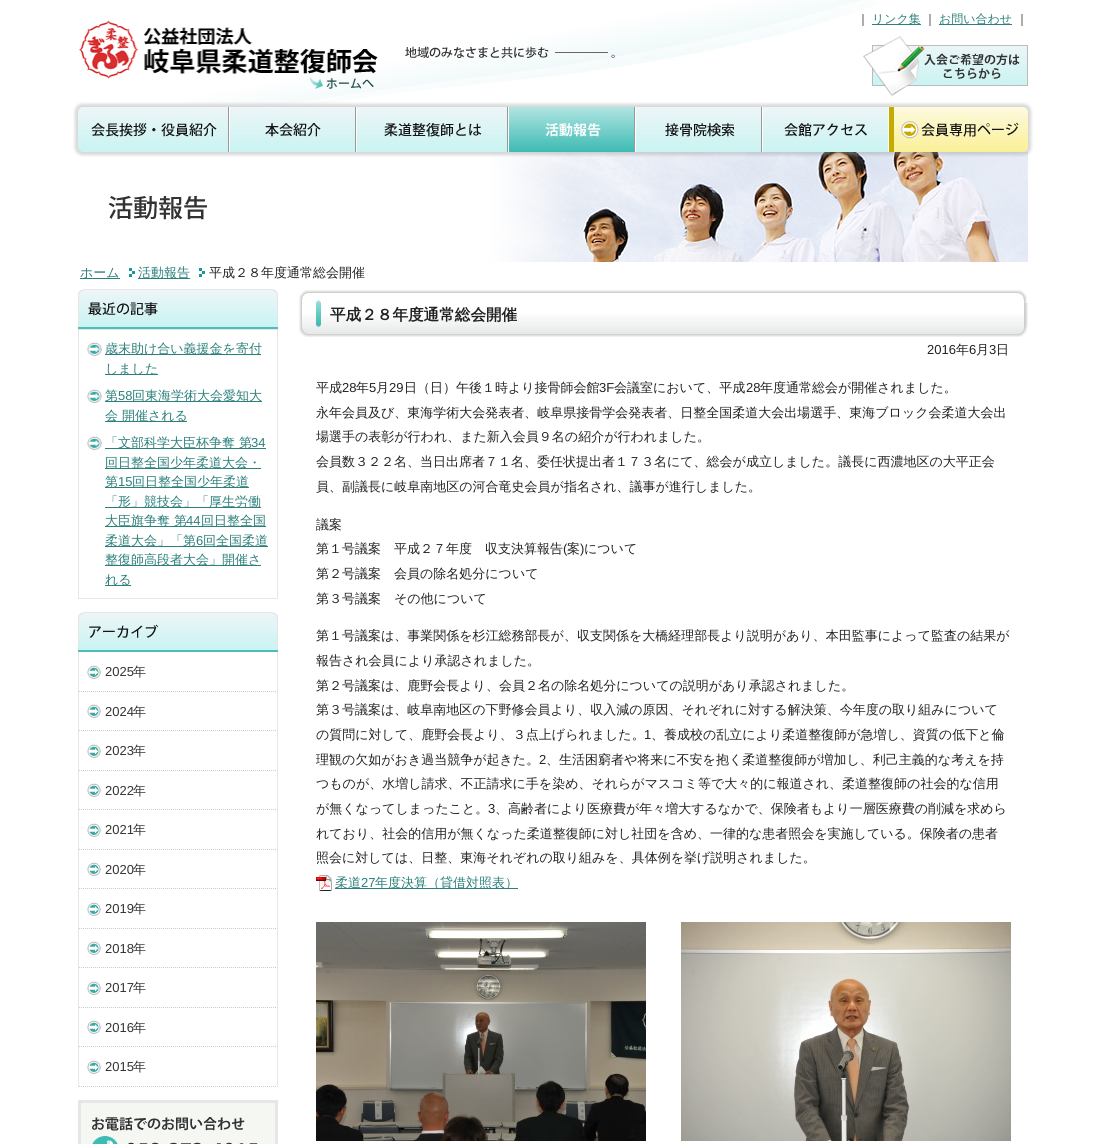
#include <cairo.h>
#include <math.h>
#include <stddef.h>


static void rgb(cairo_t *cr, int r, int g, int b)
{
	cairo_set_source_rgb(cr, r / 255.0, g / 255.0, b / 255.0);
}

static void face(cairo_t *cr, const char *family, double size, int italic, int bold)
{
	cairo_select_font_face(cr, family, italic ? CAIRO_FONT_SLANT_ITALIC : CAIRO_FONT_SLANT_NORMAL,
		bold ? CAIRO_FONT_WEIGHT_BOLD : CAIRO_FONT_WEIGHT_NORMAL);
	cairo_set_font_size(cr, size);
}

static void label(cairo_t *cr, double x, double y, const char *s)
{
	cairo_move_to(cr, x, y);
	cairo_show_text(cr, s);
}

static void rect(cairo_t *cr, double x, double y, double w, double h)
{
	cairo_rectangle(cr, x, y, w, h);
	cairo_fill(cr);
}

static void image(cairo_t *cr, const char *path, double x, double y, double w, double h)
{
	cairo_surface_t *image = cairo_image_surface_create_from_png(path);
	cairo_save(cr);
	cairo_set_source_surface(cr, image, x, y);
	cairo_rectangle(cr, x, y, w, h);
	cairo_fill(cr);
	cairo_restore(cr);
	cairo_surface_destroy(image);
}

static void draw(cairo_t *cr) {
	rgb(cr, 255, 255, 255);
	cairo_paint(cr);
	image(cr, "image0.png", 184, 0, 693, 105);
	image(cr, "image1.png", 79, 20, 299, 69);
	face(cr, "WenQuanYi Zen Hei Medium", 12, 0, 0);
	rgb(cr, 34, 34, 34);
	label(cr, 857, 23, "｜");
	rgb(cr, 43, 128, 123);
	rect(cr, 872, 24, 49, 1);
	label(cr, 872, 23, "リンク集");
	rgb(cr, 34, 34, 34);
	label(cr, 924, 23, "｜");
	rgb(cr, 43, 128, 123);
	rect(cr, 939, 24, 73, 1);
	label(cr, 939, 23, "お問い合わせ");
	rgb(cr, 34, 34, 34);
	label(cr, 1016, 23, "｜");
	image(cr, "image2.png", 405, 46, 210, 13);
	image(cr, "image3.png", 863, 36, 165, 60);
	image(cr, "image11.png", 108, 152, 920, 110);
	image(cr, "image4.png", 73, 102, 157, 55);
	image(cr, "image5.png", 230, 102, 127, 55);
	image(cr, "image6.png", 357, 102, 152, 55);
	image(cr, "image7.png", 509, 102, 127, 55);
	image(cr, "image8.png", 636, 102, 127, 55);
	image(cr, "image9.png", 763, 102, 125, 55);
	image(cr, "image10.png", 888, 102, 145, 55);
	rgb(cr, 43, 128, 123);
	rect(cr, 80, 278, 40, 1);
	face(cr, "WenQuanYi Zen Hei Medium", 13, 0, 0);
	label(cr, 80, 277, "ホーム");
	image(cr, "image12.png", 129, 268, 6, 9);
	rect(cr, 138, 278, 52, 1);
	label(cr, 138, 277, "活動報告");
	image(cr, "image12.png", 199, 268, 6, 9);
	rgb(cr, 34, 34, 34);
	label(cr, 209, 277, "平成２８年度通常総会開催");
	image(cr, "image13.png", 78, 289, 200, 40);
	cairo_rectangle(cr, 78.5, 329.5, 199, 269);
	rgb(cr, 230, 230, 230);
	cairo_set_line_width(cr, 1);
	cairo_stroke(cr);
	image(cr, "image14.png", 87, 342, 15, 14);
	rgb(cr, 43, 128, 123);
	rect(cr, 105, 354, 156, 1);
	label(cr, 105, 353, "歳末助け合い義援金を寄付");
	rect(cr, 105, 374, 53, 1);
	label(cr, 105, 373, "しました");
	image(cr, "image14.png", 87, 389, 15, 14);
	rect(cr, 105, 401, 157, 1);
	label(cr, 105, 400, "第");
	face(cr, "Liberation Sans", 13, 0, 0);
	label(cr, 118, 400, "58");
	face(cr, "WenQuanYi Zen Hei Medium", 13, 0, 0);
	label(cr, 132, 400, "回東海学術大会愛知大");
	rect(cr, 105, 421, 82, 1);
	label(cr, 105, 420, "会 開催される");
	image(cr, "image14.png", 87, 436, 15, 14);
	rect(cr, 105, 448, 161, 1);
	label(cr, 105, 447, "「文部科学大臣杯争奪 第");
	face(cr, "Liberation Sans", 13, 0, 0);
	label(cr, 251, 447, "34");
	rect(cr, 105, 468, 156, 1);
	face(cr, "WenQuanYi Zen Hei Medium", 13, 0, 0);
	label(cr, 105, 467, "回日整全国少年柔道大会・");
	rect(cr, 105, 487, 144, 1);
	label(cr, 105, 486, "第");
	face(cr, "Liberation Sans", 13, 0, 0);
	label(cr, 118, 486, "15");
	face(cr, "WenQuanYi Zen Hei Medium", 13, 0, 0);
	label(cr, 132, 486, "回日整全国少年柔道");
	rect(cr, 105, 507, 156, 1);
	label(cr, 105, 506, "「形」競技会」「厚生労働");
	rect(cr, 105, 526, 161, 1);
	label(cr, 105, 525, "大臣旗争奪 第");
	face(cr, "Liberation Sans", 13, 0, 0);
	label(cr, 186, 525, "44");
	face(cr, "WenQuanYi Zen Hei Medium", 13, 0, 0);
	label(cr, 201, 525, "回日整全国");
	rect(cr, 105, 546, 163, 1);
	label(cr, 105, 545, "柔道大会」「第");
	face(cr, "Liberation Sans", 13, 0, 0);
	label(cr, 196, 545, "6");
	face(cr, "WenQuanYi Zen Hei Medium", 13, 0, 0);
	label(cr, 203, 545, "回全国柔道");
	rect(cr, 105, 565, 156, 1);
	label(cr, 105, 564, "整復師高段者大会」開催さ");
	rect(cr, 105, 585, 26, 1);
	label(cr, 105, 584, "れる");
	image(cr, "image15.png", 78, 612, 200, 40);
	image(cr, "image16.png", 79, 691, 198, 1);
	rgb(cr, 230, 230, 230);
	rect(cr, 277, 652, 1, 435);
	rect(cr, 78, 652, 1, 435);
	image(cr, "image17.png", 87, 665, 14, 14);
	face(cr, "Liberation Sans", 13, 0, 0);
	rgb(cr, 51, 51, 51);
	label(cr, 105, 676, "2025");
	face(cr, "WenQuanYi Zen Hei Medium", 13, 0, 0);
	label(cr, 133, 676, "年");
	image(cr, "image16.png", 79, 730, 198, 1);
	image(cr, "image17.png", 87, 704, 14, 14);
	face(cr, "Liberation Sans", 13, 0, 0);
	label(cr, 105, 716, "2024");
	face(cr, "WenQuanYi Zen Hei Medium", 13, 0, 0);
	label(cr, 133, 716, "年");
	image(cr, "image16.png", 79, 770, 198, 1);
	image(cr, "image17.png", 87, 744, 14, 14);
	face(cr, "Liberation Sans", 13, 0, 0);
	label(cr, 105, 755, "2023");
	face(cr, "WenQuanYi Zen Hei Medium", 13, 0, 0);
	label(cr, 133, 755, "年");
	image(cr, "image16.png", 79, 809, 198, 1);
	image(cr, "image17.png", 87, 783, 14, 14);
	face(cr, "Liberation Sans", 13, 0, 0);
	label(cr, 105, 795, "2022");
	face(cr, "WenQuanYi Zen Hei Medium", 13, 0, 0);
	label(cr, 133, 795, "年");
	image(cr, "image16.png", 79, 849, 198, 1);
	image(cr, "image17.png", 87, 823, 14, 14);
	face(cr, "Liberation Sans", 13, 0, 0);
	label(cr, 105, 834, "2021");
	face(cr, "WenQuanYi Zen Hei Medium", 13, 0, 0);
	label(cr, 133, 834, "年");
	image(cr, "image16.png", 79, 888, 198, 1);
	image(cr, "image17.png", 87, 862, 14, 14);
	face(cr, "Liberation Sans", 13, 0, 0);
	label(cr, 105, 874, "2020");
	face(cr, "WenQuanYi Zen Hei Medium", 13, 0, 0);
	label(cr, 133, 874, "年");
	image(cr, "image16.png", 79, 928, 198, 1);
	image(cr, "image17.png", 87, 902, 14, 14);
	face(cr, "Liberation Sans", 13, 0, 0);
	label(cr, 105, 913, "2019");
	face(cr, "WenQuanYi Zen Hei Medium", 13, 0, 0);
	label(cr, 133, 913, "年");
	image(cr, "image16.png", 79, 967, 198, 1);
	image(cr, "image17.png", 87, 941, 14, 14);
	face(cr, "Liberation Sans", 13, 0, 0);
	label(cr, 105, 953, "2018");
	face(cr, "WenQuanYi Zen Hei Medium", 13, 0, 0);
	label(cr, 133, 953, "年");
	image(cr, "image16.png", 79, 1007, 198, 1);
	image(cr, "image17.png", 87, 981, 14, 14);
	face(cr, "Liberation Sans", 13, 0, 0);
	label(cr, 105, 992, "2017");
	face(cr, "WenQuanYi Zen Hei Medium", 13, 0, 0);
	label(cr, 133, 992, "年");
	image(cr, "image16.png", 79, 1046, 198, 1);
	image(cr, "image17.png", 87, 1020, 14, 14);
	face(cr, "Liberation Sans", 13, 0, 0);
	label(cr, 105, 1032, "2016");
	face(cr, "WenQuanYi Zen Hei Medium", 13, 0, 0);
	label(cr, 133, 1032, "年");
	image(cr, "image16.png", 79, 1086, 198, 1);
	image(cr, "image17.png", 87, 1060, 14, 14);
	face(cr, "Liberation Sans", 13, 0, 0);
	label(cr, 105, 1071, "2015");
	face(cr, "WenQuanYi Zen Hei Medium", 13, 0, 0);
	label(cr, 133, 1071, "年");
	rgb(cr, 245, 247, 242);
	cairo_rectangle(cr, 79.5, 1101.5, 197, 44);
	cairo_fill_preserve(cr);
	rgb(cr, 230, 230, 230);
	cairo_set_line_width(cr, 3);
	cairo_stroke(cr);
	image(cr, "image18.png", 92, 1117, 166, 27);
	image(cr, "image19.png", 299, 303, 729, 34);
	image(cr, "image20.png", 299, 289, 729, 14);
	face(cr, "WenQuanYi Zen Hei", 15.6, 0, 1);
	rgb(cr, 34, 34, 34);
	label(cr, 330, 320, "平成２８年度通常総会開催");
	face(cr, "Liberation Sans", 13, 0, 0);
	label(cr, 927, 354, "2016");
	face(cr, "WenQuanYi Zen Hei Medium", 13, 0, 0);
	label(cr, 956, 354, "年");
	face(cr, "Liberation Sans", 13, 0, 0);
	label(cr, 969, 354, "6");
	face(cr, "WenQuanYi Zen Hei Medium", 13, 0, 0);
	label(cr, 976, 354, "月");
	face(cr, "Liberation Sans", 13, 0, 0);
	label(cr, 989, 354, "3");
	face(cr, "WenQuanYi Zen Hei Medium", 13, 0, 0);
	label(cr, 996, 354, "日");
	label(cr, 316, 392, "平成");
	face(cr, "Liberation Sans", 13, 0, 0);
	label(cr, 342, 392, "28");
	face(cr, "WenQuanYi Zen Hei Medium", 13, 0, 0);
	label(cr, 356, 392, "年");
	face(cr, "Liberation Sans", 13, 0, 0);
	label(cr, 369, 392, "5");
	face(cr, "WenQuanYi Zen Hei Medium", 13, 0, 0);
	label(cr, 376, 392, "月");
	face(cr, "Liberation Sans", 13, 0, 0);
	label(cr, 389, 392, "29");
	face(cr, "WenQuanYi Zen Hei Medium", 13, 0, 0);
	label(cr, 404, 392, "日（日）午後１時より接骨師会館");
	face(cr, "Liberation Sans", 13, 0, 0);
	label(cr, 599, 392, "3F");
	face(cr, "WenQuanYi Zen Hei Medium", 13, 0, 0);
	label(cr, 614, 392, "会議室において、平成");
	face(cr, "Liberation Sans", 13, 0, 0);
	label(cr, 746, 392, "28");
	face(cr, "WenQuanYi Zen Hei Medium", 13, 0, 0);
	label(cr, 760, 392, "年度通常総会が開催されました。");
	label(cr, 316, 417, "永年会員及び、東海学術大会発表者、岐阜県接骨学会発表者、日整全国柔道大会出場選手、東海ブロック会柔道大会出");
	label(cr, 316, 441, "場選手の表彰が行われ、また新入会員９名の紹介が行われました。");
	label(cr, 316, 466, "会員数３２２名、当日出席者７１名、委任状提出者１７３名にて、総会が成立しました。議長に西濃地区の大平正会");
	label(cr, 316, 491, "員、副議長に岐阜南地区の河合竜史会員が指名され、議事が進行しました。");
	label(cr, 316, 529, "議案");
	label(cr, 316, 553, "第１号議案　平成２７年度　収支決算報告");
	face(cr, "Liberation Sans", 13, 0, 0);
	label(cr, 563, 553, "(");
	face(cr, "WenQuanYi Zen Hei Medium", 13, 0, 0);
	label(cr, 567, 553, "案");
	face(cr, "Liberation Sans", 13, 0, 0);
	label(cr, 580, 553, ")");
	face(cr, "WenQuanYi Zen Hei Medium", 13, 0, 0);
	label(cr, 584, 553, "について");
	label(cr, 316, 578, "第２号議案　会員の除名処分について");
	label(cr, 316, 603, "第３号議案　その他について");
	label(cr, 316, 640, "第１号議案は、事業関係を杉江総務部長が、収支関係を大橋経理部長より説明があり、本田監事によって監査の結果が");
	label(cr, 316, 665, "報告され会員により承認されました。");
	label(cr, 316, 690, "第２号議案は、鹿野会長より、会員２名の除名処分についての説明があり承認されました。");
	label(cr, 316, 714, "第３号議案は、岐阜南地区の下野修会員より、収入減の原因、それぞれに対する解決策、今年度の取り組みについて");
	label(cr, 316, 739, "の質問に対して、鹿野会長より、３点上げられました。");
	face(cr, "Liberation Sans", 13, 0, 0);
	label(cr, 644, 739, "1");
	face(cr, "WenQuanYi Zen Hei Medium", 13, 0, 0);
	label(cr, 651, 739, "、養成校の乱立により柔道整復師が急増し、資質の低下と倫");
	label(cr, 316, 764, "理観の欠如がおき過当競争が起きた。");
	face(cr, "Liberation Sans", 13, 0, 0);
	label(cr, 539, 764, "2");
	face(cr, "WenQuanYi Zen Hei Medium", 13, 0, 0);
	label(cr, 546, 764, "、生活困窮者や将来に不安を抱く柔道整復師が増加し、利己主義的な考えを持");
	label(cr, 316, 788, "つものが、水増し請求、不正請求に手を染め、それらがマスコミ等で大々的に報道され、柔道整復師の社会的な信用");
	label(cr, 316, 813, "が無くなってしまったこと。");
	face(cr, "Liberation Sans", 13, 0, 0);
	label(cr, 488, 813, "3");
	face(cr, "WenQuanYi Zen Hei Medium", 13, 0, 0);
	label(cr, 495, 813, "、高齢者により医療費が年々増大するなかで、保険者もより一層医療費の削減を求めら");
	label(cr, 316, 838, "れており、社会的信用が無くなった柔道整復師に対し社団を含め、一律的な患者照会を実施している。保険者の患者");
	label(cr, 316, 862, "照会に対しては、日整、東海それぞれの取り組みを、具体例を挙げ説明されました。");
	image(cr, "image21.png", 316, 875, 16, 16);
	rgb(cr, 43, 128, 123);
	rect(cr, 335, 888, 183, 1);
	label(cr, 335, 887, "柔道");
	face(cr, "Liberation Sans", 13, 0, 0);
	label(cr, 361, 887, "27");
	face(cr, "WenQuanYi Zen Hei Medium", 13, 0, 0);
	label(cr, 375, 887, "年度決算（貸借対照表）");
	image(cr, "image22.png", 316, 922, 330, 219);
	image(cr, "image23.png", 681, 922, 330, 219);
}

int main(void) {
	cairo_surface_t *surface = cairo_image_surface_create(CAIRO_FORMAT_RGB24, 1105, 1144);
	cairo_t *cr = cairo_create(surface);
	cairo_font_options_t *options = cairo_font_options_create();
	cairo_font_options_set_hint_metrics(options, CAIRO_HINT_METRICS_OFF);
	cairo_font_options_set_hint_style(options, CAIRO_HINT_STYLE_NONE);
	cairo_set_font_options(cr, options);
	cairo_set_miter_limit(cr, 4);
	draw(cr);
	cairo_surface_write_to_png(surface, "render.png");
	cairo_font_options_destroy(options);
	cairo_destroy(cr);
	cairo_surface_destroy(surface);
	return 0;
}
